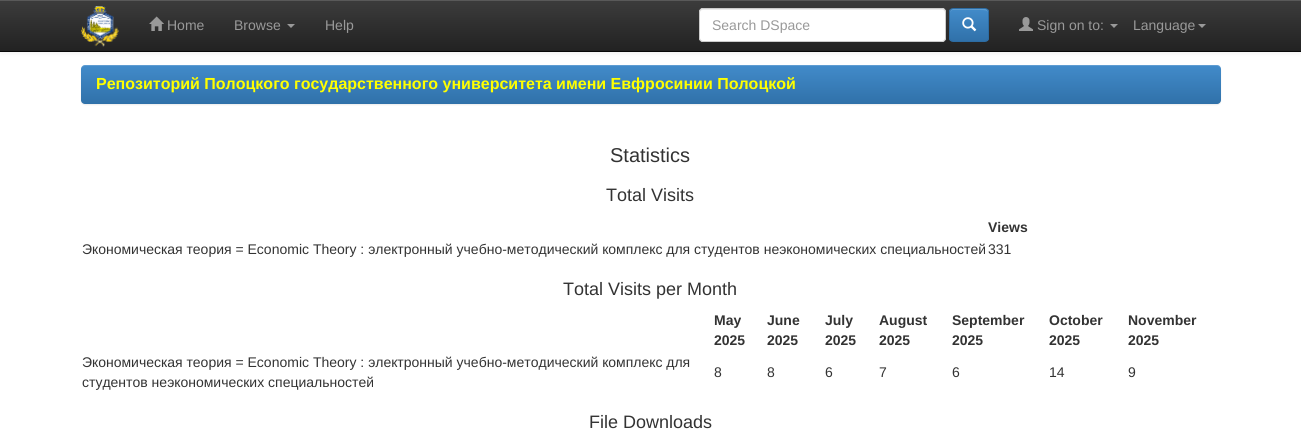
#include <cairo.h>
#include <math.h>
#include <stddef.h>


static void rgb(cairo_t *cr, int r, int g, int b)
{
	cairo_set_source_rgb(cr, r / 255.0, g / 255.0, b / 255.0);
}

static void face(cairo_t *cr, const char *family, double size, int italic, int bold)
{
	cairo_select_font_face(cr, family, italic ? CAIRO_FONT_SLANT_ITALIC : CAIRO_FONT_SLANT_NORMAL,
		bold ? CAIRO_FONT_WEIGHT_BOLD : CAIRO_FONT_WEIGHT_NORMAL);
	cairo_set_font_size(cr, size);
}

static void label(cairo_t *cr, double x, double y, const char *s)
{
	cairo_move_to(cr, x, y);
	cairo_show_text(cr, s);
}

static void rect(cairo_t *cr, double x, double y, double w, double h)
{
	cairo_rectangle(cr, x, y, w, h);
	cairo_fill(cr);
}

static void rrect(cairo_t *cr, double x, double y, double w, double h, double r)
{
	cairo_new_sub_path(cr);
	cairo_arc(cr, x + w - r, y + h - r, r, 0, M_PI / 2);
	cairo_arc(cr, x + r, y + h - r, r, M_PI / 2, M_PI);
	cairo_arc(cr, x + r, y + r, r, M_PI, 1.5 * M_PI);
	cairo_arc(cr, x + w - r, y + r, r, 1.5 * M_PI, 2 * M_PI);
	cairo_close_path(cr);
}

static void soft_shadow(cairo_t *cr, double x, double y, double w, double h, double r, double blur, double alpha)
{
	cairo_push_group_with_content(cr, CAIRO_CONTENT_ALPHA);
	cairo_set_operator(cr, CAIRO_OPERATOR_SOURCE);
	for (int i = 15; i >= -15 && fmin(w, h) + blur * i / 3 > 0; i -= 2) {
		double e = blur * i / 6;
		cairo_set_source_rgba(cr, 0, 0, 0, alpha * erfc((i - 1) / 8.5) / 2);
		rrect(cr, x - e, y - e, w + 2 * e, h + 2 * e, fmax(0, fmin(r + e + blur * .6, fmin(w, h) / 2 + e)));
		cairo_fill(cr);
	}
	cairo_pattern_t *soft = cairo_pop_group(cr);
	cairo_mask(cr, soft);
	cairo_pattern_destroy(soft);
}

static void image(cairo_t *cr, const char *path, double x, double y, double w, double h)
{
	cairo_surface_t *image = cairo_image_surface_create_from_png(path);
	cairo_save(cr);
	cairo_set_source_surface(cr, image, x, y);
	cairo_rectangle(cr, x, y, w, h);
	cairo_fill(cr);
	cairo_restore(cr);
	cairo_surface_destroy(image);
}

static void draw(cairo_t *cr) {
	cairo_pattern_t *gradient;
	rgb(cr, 255, 255, 255);
	cairo_paint(cr);
	rgb(cr, 0, 0, 0);
	soft_shadow(cr, 0, 1, 1301, 52, 0, 2.5, 0.07);
	gradient = cairo_pattern_create_linear(651, 0, 651, 51);
	cairo_pattern_add_color_stop_rgba(gradient, 0, 0.235, 0.235, 0.235, 1);
	cairo_pattern_add_color_stop_rgba(gradient, 1, 0.133, 0.133, 0.133, 1);
	cairo_set_source(cr, gradient);
	cairo_pattern_destroy(gradient);
	rect(cr, 0, 1, 1301, 50);
	rgb(cr, 89, 89, 89);
	rect(cr, 0, 0, 1301, 1);
	rgb(cr, 8, 8, 8);
	rect(cr, 0, 51, 1301, 1);
	image(cr, "image0.png", 81, 6, 38, 41);
	image(cr, "image1.png", 149, 16, 15, 15);
	face(cr, "Liberation Sans", 14, 0, 0);
	rgb(cr, 153, 153, 153);
	label(cr, 167, 30, "Home");
	label(cr, 234, 30, "Browse");
	cairo_new_path(cr);
	cairo_move_to(cr, 287, 24);
	cairo_line_to(cr, 295, 24);
	cairo_line_to(cr, 291, 28);
	cairo_close_path(cr);
	cairo_fill(cr);
	label(cr, 325, 30, "Help");
	rgb(cr, 255, 255, 255);
	rrect(cr, 699, 8, 247, 34, 4);
	cairo_fill(cr);
	rgb(cr, 236, 236, 236);
	cairo_new_path(cr);
	cairo_move_to(cr, 703, 10);
	cairo_line_to(cr, 943, 10);
	cairo_line_to(cr, 945, 11);
	cairo_line_to(cr, 945, 13);
	cairo_curve_to(cr, 945, 11, 944, 9, 942, 9);
	cairo_line_to(cr, 703, 9);
	cairo_curve_to(cr, 701, 9, 700, 11, 700, 13);
	cairo_curve_to(cr, 700, 11, 701, 10, 703, 10);
	cairo_close_path(cr);
	cairo_fill(cr);
	rrect(cr, 699.5, 8.5, 246, 33, 3.5);
	rgb(cr, 204, 204, 204);
	cairo_set_line_width(cr, 1);
	cairo_stroke(cr);
	rgb(cr, 153, 153, 153);
	label(cr, 712, 30, "Search DSpace");
	cairo_save(cr);
	rrect(cr, 949, 8, 40, 34, 4);
	cairo_clip(cr);
	gradient = cairo_pattern_create_linear(969, 9, 969, 41);
	cairo_pattern_add_color_stop_rgba(gradient, 0, 0.259, 0.545, 0.792, 1);
	cairo_pattern_add_color_stop_rgba(gradient, 1, 0.188, 0.443, 0.663, 1);
	cairo_set_source(cr, gradient);
	cairo_pattern_destroy(gradient);
	rect(cr, 949, 9, 40, 32);
	cairo_restore(cr);
	rgb(cr, 94, 156, 209);
	cairo_new_path(cr);
	cairo_move_to(cr, 953, 10);
	cairo_line_to(cr, 980, 10);
	cairo_curve_to(cr, 985.5, 10, 987.5, 10.5, 988, 12.5);
	cairo_curve_to(cr, 988, 7.5, 983.5, 9, 979.5, 9);
	cairo_line_to(cr, 958.5, 9);
	cairo_curve_to(cr, 955, 9, 950, 8, 950, 12.5);
	cairo_curve_to(cr, 950.5, 11, 951.5, 10, 953, 10);
	cairo_close_path(cr);
	cairo_fill(cr);
	rrect(cr, 949.5, 8.5, 39, 33, 3.5);
	rgb(cr, 45, 108, 162);
	cairo_stroke(cr);
	image(cr, "image2.png", 962, 17, 15, 15);
	image(cr, "image3.png", 1019, 17, 14, 14);
	rgb(cr, 153, 153, 153);
	label(cr, 1037, 30, "Sign on to:");
	cairo_new_path(cr);
	cairo_move_to(cr, 1110, 24);
	cairo_line_to(cr, 1118, 24);
	cairo_line_to(cr, 1114, 28);
	cairo_close_path(cr);
	cairo_fill(cr);
	label(cr, 1133, 30, "Language");
	cairo_new_path(cr);
	cairo_move_to(cr, 1198, 24);
	cairo_line_to(cr, 1206, 24);
	cairo_line_to(cr, 1202, 28);
	cairo_close_path(cr);
	cairo_fill(cr);
	rgb(cr, 0, 0, 0);
	soft_shadow(cr, 81, 66, 1140, 39, 4, 0.5, 0.07);
	gradient = cairo_pattern_create_linear(651, 65, 651, 104);
	cairo_pattern_add_color_stop_rgba(gradient, 0, 0.259, 0.545, 0.792, 1);
	cairo_pattern_add_color_stop_rgba(gradient, 1, 0.188, 0.443, 0.663, 1);
	cairo_set_source(cr, gradient);
	cairo_pattern_destroy(gradient);
	rrect(cr, 81, 65, 1140, 39, 4);
	cairo_fill(cr);
	cairo_set_source_rgba(cr, 1, 1, 1, 0.15);
	cairo_new_path(cr);
	cairo_move_to(cr, 85, 66);
	cairo_line_to(cr, 1217, 66);
	cairo_curve_to(cr, 1219, 66, 1221, 68, 1221, 70);
	cairo_curve_to(cr, 1221, 67, 1220, 65, 1217, 65);
	cairo_line_to(cr, 85, 65);
	cairo_curve_to(cr, 82, 65, 81, 67, 81, 70);
	cairo_curve_to(cr, 81, 68, 83, 66, 85, 66);
	cairo_close_path(cr);
	cairo_fill(cr);
	face(cr, "Liberation Sans", 16, 0, 1);
	rgb(cr, 255, 255, 0);
	label(cr, 96, 89, "Репозиторий Полоцкого государственного университета имени Евфросинии Полоцкой");
	face(cr, "Liberation Sans", 20, 0, 0);
	rgb(cr, 51, 51, 51);
	label(cr, 610, 162, "Statistics");
	face(cr, "Liberation Sans", 18, 0, 0);
	label(cr, 606, 201, "Total Visits");
	face(cr, "Liberation Sans", 14, 0, 1);
	label(cr, 988, 232, "Views");
	face(cr, "Liberation Sans", 14, 0, 0);
	label(cr, 82, 254, "Экономическая теория = Economic Theory : электронный учебно-методический комплекс для студентов неэкономических специальностей");
	label(cr, 988, 254, "331");
	face(cr, "Liberation Sans", 18, 0, 0);
	label(cr, 563, 295, "Total Visits per Month");
	face(cr, "Liberation Sans", 14, 0, 1);
	label(cr, 714, 325, "May");
	label(cr, 714, 345, "2025");
	label(cr, 767, 325, "June");
	label(cr, 767, 345, "2025");
	label(cr, 825, 325, "July");
	label(cr, 825, 345, "2025");
	label(cr, 879, 325, "August");
	label(cr, 879, 345, "2025");
	label(cr, 952, 325, "September");
	label(cr, 952, 345, "2025");
	label(cr, 1049, 325, "October");
	label(cr, 1049, 345, "2025");
	label(cr, 1128, 325, "November");
	label(cr, 1128, 345, "2025");
	face(cr, "Liberation Sans", 14, 0, 0);
	label(cr, 82, 367, "Экономическая теория = Economic Theory : электронный учебно-методический комплекс для");
	label(cr, 82, 387, "студентов неэкономических специальностей");
	label(cr, 714, 377, "8");
	label(cr, 767, 377, "8");
	label(cr, 825, 377, "6");
	label(cr, 879, 377, "7");
	label(cr, 952, 377, "6");
	label(cr, 1049, 377, "14");
	label(cr, 1128, 377, "9");
	face(cr, "Liberation Sans", 18, 0, 0);
	label(cr, 589, 428, "File Downloads");
}

int main(void) {
	cairo_surface_t *surface = cairo_image_surface_create(CAIRO_FORMAT_RGB24, 1301, 435);
	cairo_t *cr = cairo_create(surface);
	cairo_font_options_t *options = cairo_font_options_create();
	cairo_font_options_set_hint_metrics(options, CAIRO_HINT_METRICS_OFF);
	cairo_font_options_set_hint_style(options, CAIRO_HINT_STYLE_NONE);
	cairo_set_font_options(cr, options);
	cairo_set_miter_limit(cr, 4);
	draw(cr);
	cairo_surface_write_to_png(surface, "render.png");
	cairo_font_options_destroy(options);
	cairo_destroy(cr);
	cairo_surface_destroy(surface);
	return 0;
}
